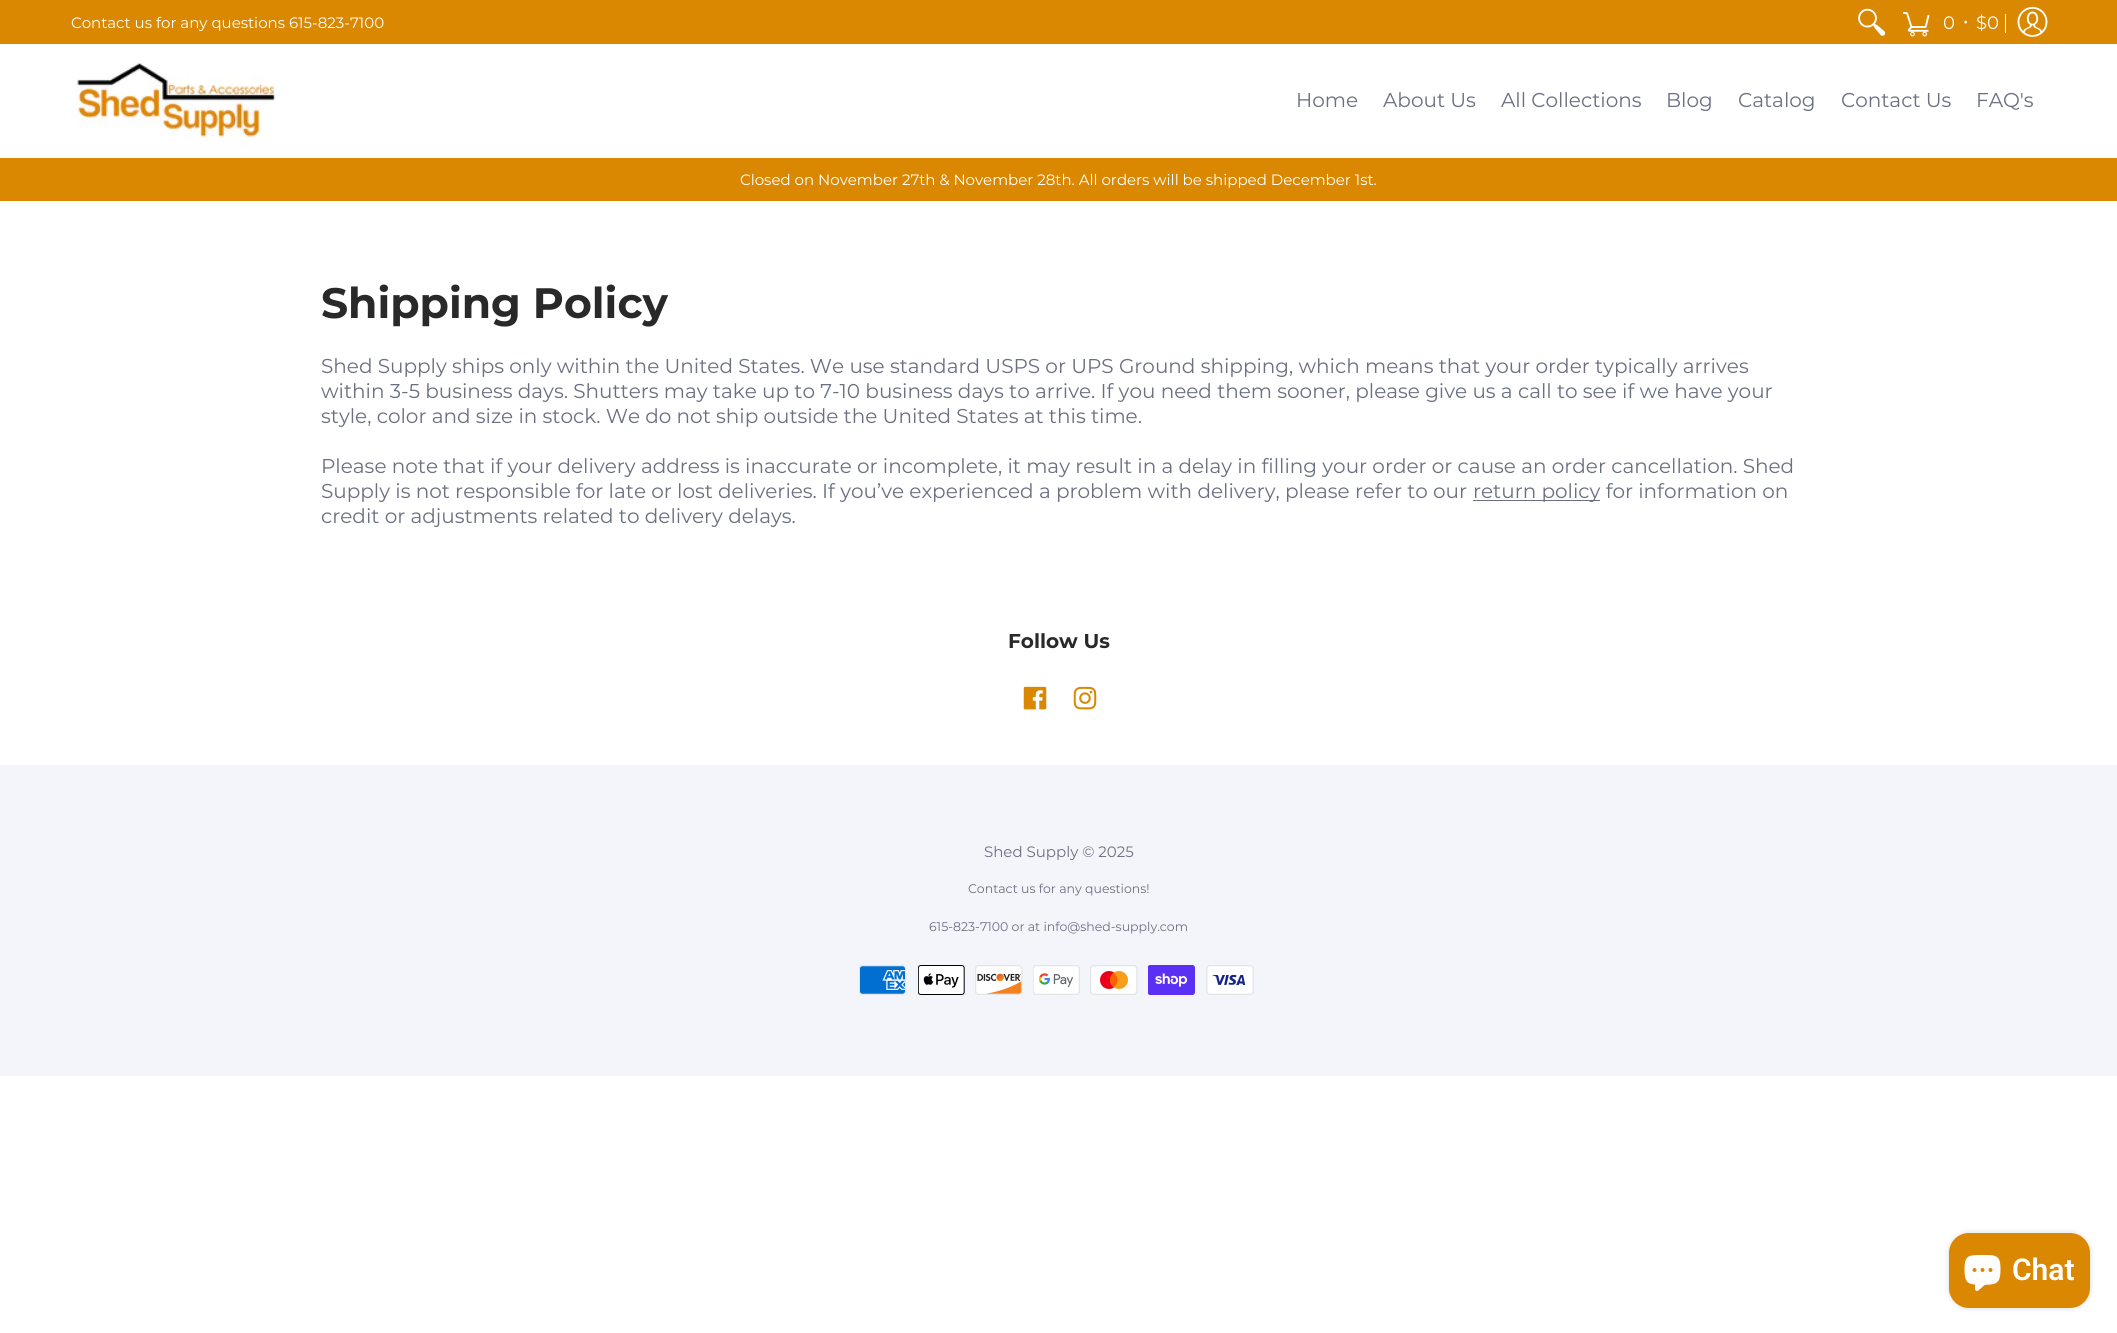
#include <cairo.h>
#include <math.h>
#include <stddef.h>


static void rgb(cairo_t *cr, int r, int g, int b)
{
	cairo_set_source_rgb(cr, r / 255.0, g / 255.0, b / 255.0);
}

static void face(cairo_t *cr, const char *family, double size, int italic, int bold)
{
	cairo_select_font_face(cr, family, italic ? CAIRO_FONT_SLANT_ITALIC : CAIRO_FONT_SLANT_NORMAL,
		bold ? CAIRO_FONT_WEIGHT_BOLD : CAIRO_FONT_WEIGHT_NORMAL);
	cairo_set_font_size(cr, size);
}

static void label(cairo_t *cr, double x, double y, const char *s)
{
	cairo_move_to(cr, x, y);
	cairo_show_text(cr, s);
}

static void rect(cairo_t *cr, double x, double y, double w, double h)
{
	cairo_rectangle(cr, x, y, w, h);
	cairo_fill(cr);
}

static void rrect(cairo_t *cr, double x, double y, double w, double h, double r)
{
	cairo_new_sub_path(cr);
	cairo_arc(cr, x + w - r, y + h - r, r, 0, M_PI / 2);
	cairo_arc(cr, x + r, y + h - r, r, M_PI / 2, M_PI);
	cairo_arc(cr, x + r, y + r, r, M_PI, 1.5 * M_PI);
	cairo_arc(cr, x + w - r, y + r, r, 1.5 * M_PI, 2 * M_PI);
	cairo_close_path(cr);
}

static void soft_shadow(cairo_t *cr, double x, double y, double w, double h, double r, double blur, double alpha)
{
	cairo_push_group_with_content(cr, CAIRO_CONTENT_ALPHA);
	cairo_set_operator(cr, CAIRO_OPERATOR_SOURCE);
	for (int i = 15; i >= -15 && fmin(w, h) + blur * i / 3 > 0; i -= 2) {
		double e = blur * i / 6;
		cairo_set_source_rgba(cr, 0, 0, 0, alpha * erfc((i - 1) / 8.5) / 2);
		rrect(cr, x - e, y - e, w + 2 * e, h + 2 * e, fmax(0, fmin(r + e + blur * .6, fmin(w, h) / 2 + e)));
		cairo_fill(cr);
	}
	cairo_pattern_t *soft = cairo_pop_group(cr);
	cairo_mask(cr, soft);
	cairo_pattern_destroy(soft);
}

static void image(cairo_t *cr, const char *path, double x, double y, double w, double h)
{
	cairo_surface_t *image = cairo_image_surface_create_from_png(path);
	cairo_save(cr);
	cairo_set_source_surface(cr, image, x, y);
	cairo_rectangle(cr, x, y, w, h);
	cairo_fill(cr);
	cairo_restore(cr);
	cairo_surface_destroy(image);
}

static void draw(cairo_t *cr) {
	rgb(cr, 255, 255, 255);
	cairo_paint(cr);
	rgb(cr, 218, 135, 1);
	rect(cr, 0, 0, 2117, 44);
	face(cr, "Montserrat", 15, 0, 0);
	rgb(cr, 255, 255, 255);
	label(cr, 71, 28, "Contact us for any questions 615-823-7100");
	image(cr, "image0.png", 1858, 8, 28, 28);
	image(cr, "image1.png", 1903, 12, 27, 25);
	face(cr, "Montserrat", 18, 0, 0);
	label(cr, 1943, 29, "0");
	label(cr, 1963, 27, "•");
	label(cr, 1976, 29, "$0");
	rect(cr, 2005, 14, 1, 19);
	image(cr, "image2.png", 2017, 6, 31, 31);
	image(cr, "image3.png", 71, 62, 210, 76);
	face(cr, "Montserrat", 20, 0, 0);
	rgb(cr, 107, 111, 129);
	label(cr, 1296, 107, "Home");
	label(cr, 1383, 107, "About Us");
	label(cr, 1501, 107, "All Collections");
	label(cr, 1666, 107, "Blog");
	label(cr, 1738, 107, "Catalog");
	label(cr, 1841, 107, "Contact Us");
	label(cr, 1976, 107, "FAQ's");
	rgb(cr, 218, 135, 1);
	rect(cr, 0, 158, 2117, 43);
	face(cr, "Montserrat", 15, 0, 0);
	rgb(cr, 255, 255, 255);
	label(cr, 740, 185, "Closed on November 27th & November 28th. All orders will be shipped December 1st.");
	face(cr, "Montserrat", 42.5, 0, 1);
	rgb(cr, 41, 41, 41);
	label(cr, 321, 318, "Shipping Policy");
	face(cr, "Montserrat", 20, 0, 0);
	rgb(cr, 107, 111, 129);
	label(cr, 321, 373, "Shed Supply ships only within the United States. We use standard USPS or UPS Ground shipping, which means that your order typically arrives");
	label(cr, 321, 398, "within 3-5 business days. Shutters may take up to 7-10 business days to arrive. If you need them sooner, please give us a call to see if we have your");
	label(cr, 321, 423, "style, color and size in stock. We do not ship outside the United States at this time.");
	label(cr, 321, 473, "Please note that if your delivery address is inaccurate or incomplete, it may result in a delay in filling your order or cause an order cancellation. Shed");
	label(cr, 321, 498, "Supply is not responsible for late or lost deliveries. If you’ve experienced a problem with delivery, please refer to our");
	rect(cr, 1473, 500, 127, 1);
	label(cr, 1473, 498, "return policy for information on");
	label(cr, 321, 523, "credit or adjustments related to delivery delays.");
	face(cr, "Montserrat", 20, 0, 1);
	rgb(cr, 41, 41, 41);
	label(cr, 1008, 648, "Follow Us");
	image(cr, "image4.png", 1023, 686, 24, 24);
	image(cr, "image5.png", 1073, 686, 24, 24);
	rgb(cr, 244, 245, 250);
	rect(cr, 0, 765, 2117, 311);
	face(cr, "Montserrat", 15, 0, 0);
	rgb(cr, 107, 111, 129);
	label(cr, 984, 857, "Shed Supply © 2025");
	face(cr, "Montserrat", 12.5, 0, 0);
	label(cr, 968, 893, "Contact us for any questions!");
	label(cr, 929, 931, "615-823-7100 or at info@shed-supply.com");
	image(cr, "image6.png", 859, 965, 47, 30);
	image(cr, "image7.png", 918, 965, 47, 30);
	image(cr, "image8.png", 975, 965, 48, 30);
	image(cr, "image9.png", 1033, 965, 47, 30);
	image(cr, "image10.png", 1090, 965, 48, 30);
	image(cr, "image11.png", 1148, 965, 47, 30);
	image(cr, "image12.png", 1206, 965, 48, 30);
	rgb(cr, 0, 0, 0);
	soft_shadow(cr, 1949, 1233, 141, 75, 20, 3, 0.15);
	rgb(cr, 218, 135, 1);
	rrect(cr, 1949, 1233, 141, 75, 20);
	cairo_fill(cr);
	image(cr, "image13.png", 1964, 1255, 37, 36);
	face(cr, "Roboto SemiBold", 30, 0, 0);
	rgb(cr, 255, 255, 255);
	label(cr, 2012, 1280, "Chat");
}

int main(void) {
	cairo_surface_t *surface = cairo_image_surface_create(CAIRO_FORMAT_RGB24, 2117, 1333);
	cairo_t *cr = cairo_create(surface);
	cairo_font_options_t *options = cairo_font_options_create();
	cairo_font_options_set_hint_metrics(options, CAIRO_HINT_METRICS_OFF);
	cairo_font_options_set_hint_style(options, CAIRO_HINT_STYLE_NONE);
	cairo_set_font_options(cr, options);
	cairo_set_miter_limit(cr, 4);
	draw(cr);
	cairo_surface_write_to_png(surface, "render.png");
	cairo_font_options_destroy(options);
	cairo_destroy(cr);
	cairo_surface_destroy(surface);
	return 0;
}
